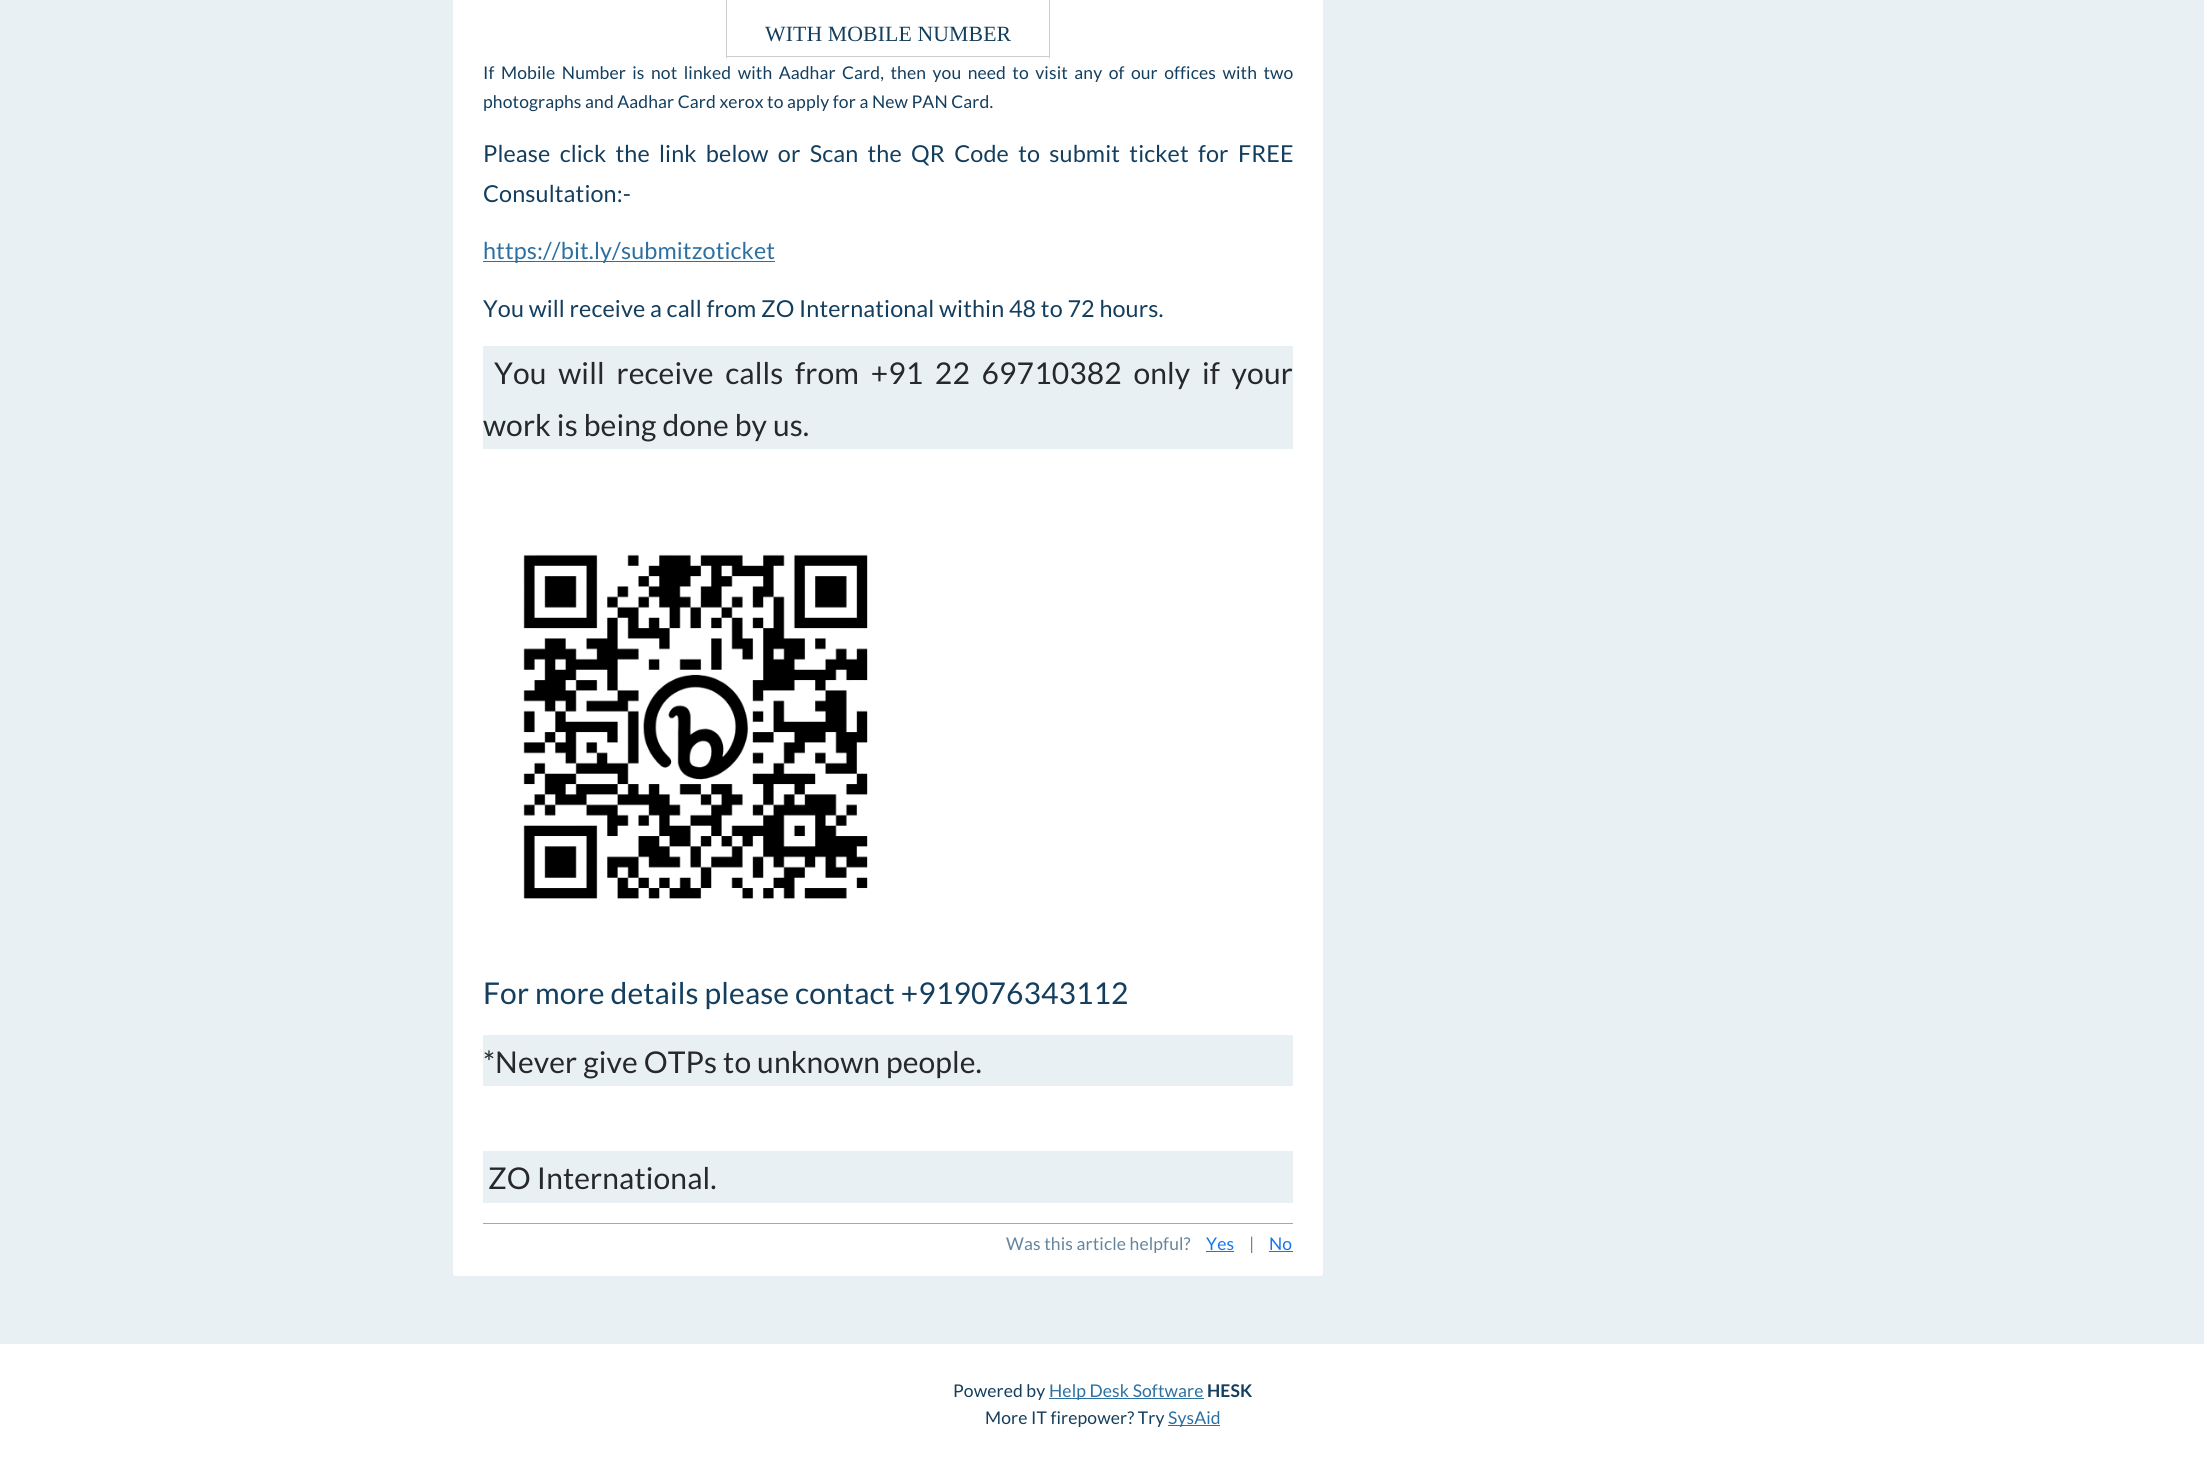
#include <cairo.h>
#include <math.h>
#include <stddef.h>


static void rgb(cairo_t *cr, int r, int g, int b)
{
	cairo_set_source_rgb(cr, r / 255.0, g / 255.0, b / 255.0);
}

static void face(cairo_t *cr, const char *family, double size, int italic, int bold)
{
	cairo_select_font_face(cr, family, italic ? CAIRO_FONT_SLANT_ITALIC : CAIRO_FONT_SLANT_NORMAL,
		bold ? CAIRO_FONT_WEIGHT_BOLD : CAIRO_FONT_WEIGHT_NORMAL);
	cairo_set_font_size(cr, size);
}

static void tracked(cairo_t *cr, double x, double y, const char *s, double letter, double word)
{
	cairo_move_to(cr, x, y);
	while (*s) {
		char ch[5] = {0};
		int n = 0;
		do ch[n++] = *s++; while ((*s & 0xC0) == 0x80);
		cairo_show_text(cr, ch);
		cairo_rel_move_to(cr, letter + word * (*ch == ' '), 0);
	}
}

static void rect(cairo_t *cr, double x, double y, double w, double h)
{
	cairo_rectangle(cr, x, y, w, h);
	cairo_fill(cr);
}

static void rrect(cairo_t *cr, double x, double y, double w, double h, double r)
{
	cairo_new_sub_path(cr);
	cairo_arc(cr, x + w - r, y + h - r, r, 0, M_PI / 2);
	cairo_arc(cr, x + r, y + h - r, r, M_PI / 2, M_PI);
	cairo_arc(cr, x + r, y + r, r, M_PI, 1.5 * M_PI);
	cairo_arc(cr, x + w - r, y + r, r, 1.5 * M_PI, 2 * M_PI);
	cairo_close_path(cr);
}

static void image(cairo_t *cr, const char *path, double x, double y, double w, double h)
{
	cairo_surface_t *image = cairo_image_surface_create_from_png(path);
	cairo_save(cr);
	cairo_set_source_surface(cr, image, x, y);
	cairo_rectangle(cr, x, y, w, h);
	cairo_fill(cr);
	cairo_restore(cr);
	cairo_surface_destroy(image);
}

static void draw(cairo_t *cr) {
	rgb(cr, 255, 255, 255);
	cairo_paint(cr);
	rgb(cr, 233, 240, 243);
	rect(cr, 0, 0, 2204, 1344);
	rgb(cr, 255, 255, 255);
	rrect(cr, 453, -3, 870, 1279, 2.5);
	cairo_fill(cr);
	rgb(cr, 204, 204, 204);
	rect(cr, 1049, 0, 1, 58);
	rect(cr, 726, 56, 324, 1);
	rect(cr, 726, 0, 1, 58);
	face(cr, "Liberation Serif", 21.75, 0, 0);
	rgb(cr, 19, 62, 94);
	tracked(cr, 765, 41, "WITH MOBILE NUMBER", 0.12, 0);
	face(cr, "Lato", 17.5, 0, 0);
	tracked(cr, 483, 79, "If Mobile Number is not linked with Aadhar Card, then you need to visit any of our offices with two", 0.12, 2.9);
	tracked(cr, 483, 108, "photographs and Aadhar Card xerox to apply for a New PAN Card.", 0.12, 0);
	face(cr, "Lato", 23.35, 0, 0);
	tracked(cr, 483, 162, "Please click the link below or Scan the QR Code to submit ticket for FREE", 0.12, 4.6);
	tracked(cr, 483, 202, "Consultation:-", 0.12, 0);
	rgb(cr, 44, 112, 162);
	rect(cr, 483, 261, 292, 1);
	tracked(cr, 483, 259, "https://bit.ly/submitzoticket", 0.12, 0);
	rgb(cr, 19, 62, 94);
	tracked(cr, 483, 317, "You will receive a call from ZO International within 48 to 72 hours.", 0.12, 0);
	rgb(cr, 233, 240, 243);
	rect(cr, 483, 346, 810, 103);
	face(cr, "Lato", 30, 0, 0);
	rgb(cr, 38, 40, 42);
	tracked(cr, 494, 384, "You will receive calls", 0.12, 5.75);
	tracked(cr, 795, 384, "from +91 22 69710382 only if your", 0.12, 5.75);
	tracked(cr, 483, 436, "work is being done by us.", 0.12, 0);
	image(cr, "image0.png", 523, 554, 345, 345);
	rgb(cr, 19, 62, 94);
	tracked(cr, 483, 1004, "For more details please contact +919076343112", 0.12, 0);
	rgb(cr, 233, 240, 243);
	rect(cr, 483, 1035, 810, 51);
	rgb(cr, 38, 40, 42);
	tracked(cr, 483, 1073, "*Never give OTPs to unknown people.", 0.12, 0);
	rgb(cr, 233, 240, 243);
	rect(cr, 483, 1151, 810, 52);
	rgb(cr, 38, 40, 42);
	tracked(cr, 488, 1189, "ZO International.", 0.12, 0);
	rgb(cr, 156, 170, 187);
	rect(cr, 483, 1223, 810, 1);
	face(cr, "Lato", 17.5, 0, 0);
	rgb(cr, 100, 133, 156);
	tracked(cr, 1006, 1250, "Was this article helpful?", 0.12, 0);
	rgb(cr, 23, 118, 234);
	tracked(cr, 1206, 1250, "Yes", 0.12, 0);
	rect(cr, 1206, 1251, 28, 1);
	rgb(cr, 100, 133, 156);
	tracked(cr, 1249, 1250, "|", 0.12, 0);
	rgb(cr, 23, 118, 234);
	tracked(cr, 1269, 1250, "No", 0.12, 0);
	rect(cr, 1269, 1251, 24, 1);
	rgb(cr, 19, 62, 94);
	tracked(cr, 953, 1397, "Powered by", 0.12, 0);
	rgb(cr, 44, 112, 162);
	rect(cr, 1049, 1398, 155, 1);
	tracked(cr, 1049, 1397, "Help Desk Software", 0.12, 0);
	face(cr, "Lato", 17.5, 0, 1);
	rgb(cr, 19, 62, 94);
	tracked(cr, 1207, 1397, "HESK", 0.12, 0);
	face(cr, "Lato", 17.5, 0, 0);
	tracked(cr, 985, 1424, "More IT firepower? Try", 0.12, 0);
	rgb(cr, 44, 112, 162);
	rect(cr, 1168, 1425, 52, 1);
	tracked(cr, 1168, 1424, "SysAid", 0.12, 0);
}

int main(void) {
	cairo_surface_t *surface = cairo_image_surface_create(CAIRO_FORMAT_RGB24, 2204, 1467);
	cairo_t *cr = cairo_create(surface);
	cairo_font_options_t *options = cairo_font_options_create();
	cairo_font_options_set_hint_metrics(options, CAIRO_HINT_METRICS_OFF);
	cairo_font_options_set_hint_style(options, CAIRO_HINT_STYLE_NONE);
	cairo_set_font_options(cr, options);
	cairo_set_miter_limit(cr, 4);
	draw(cr);
	cairo_surface_write_to_png(surface, "render.png");
	cairo_font_options_destroy(options);
	cairo_destroy(cr);
	cairo_surface_destroy(surface);
	return 0;
}
